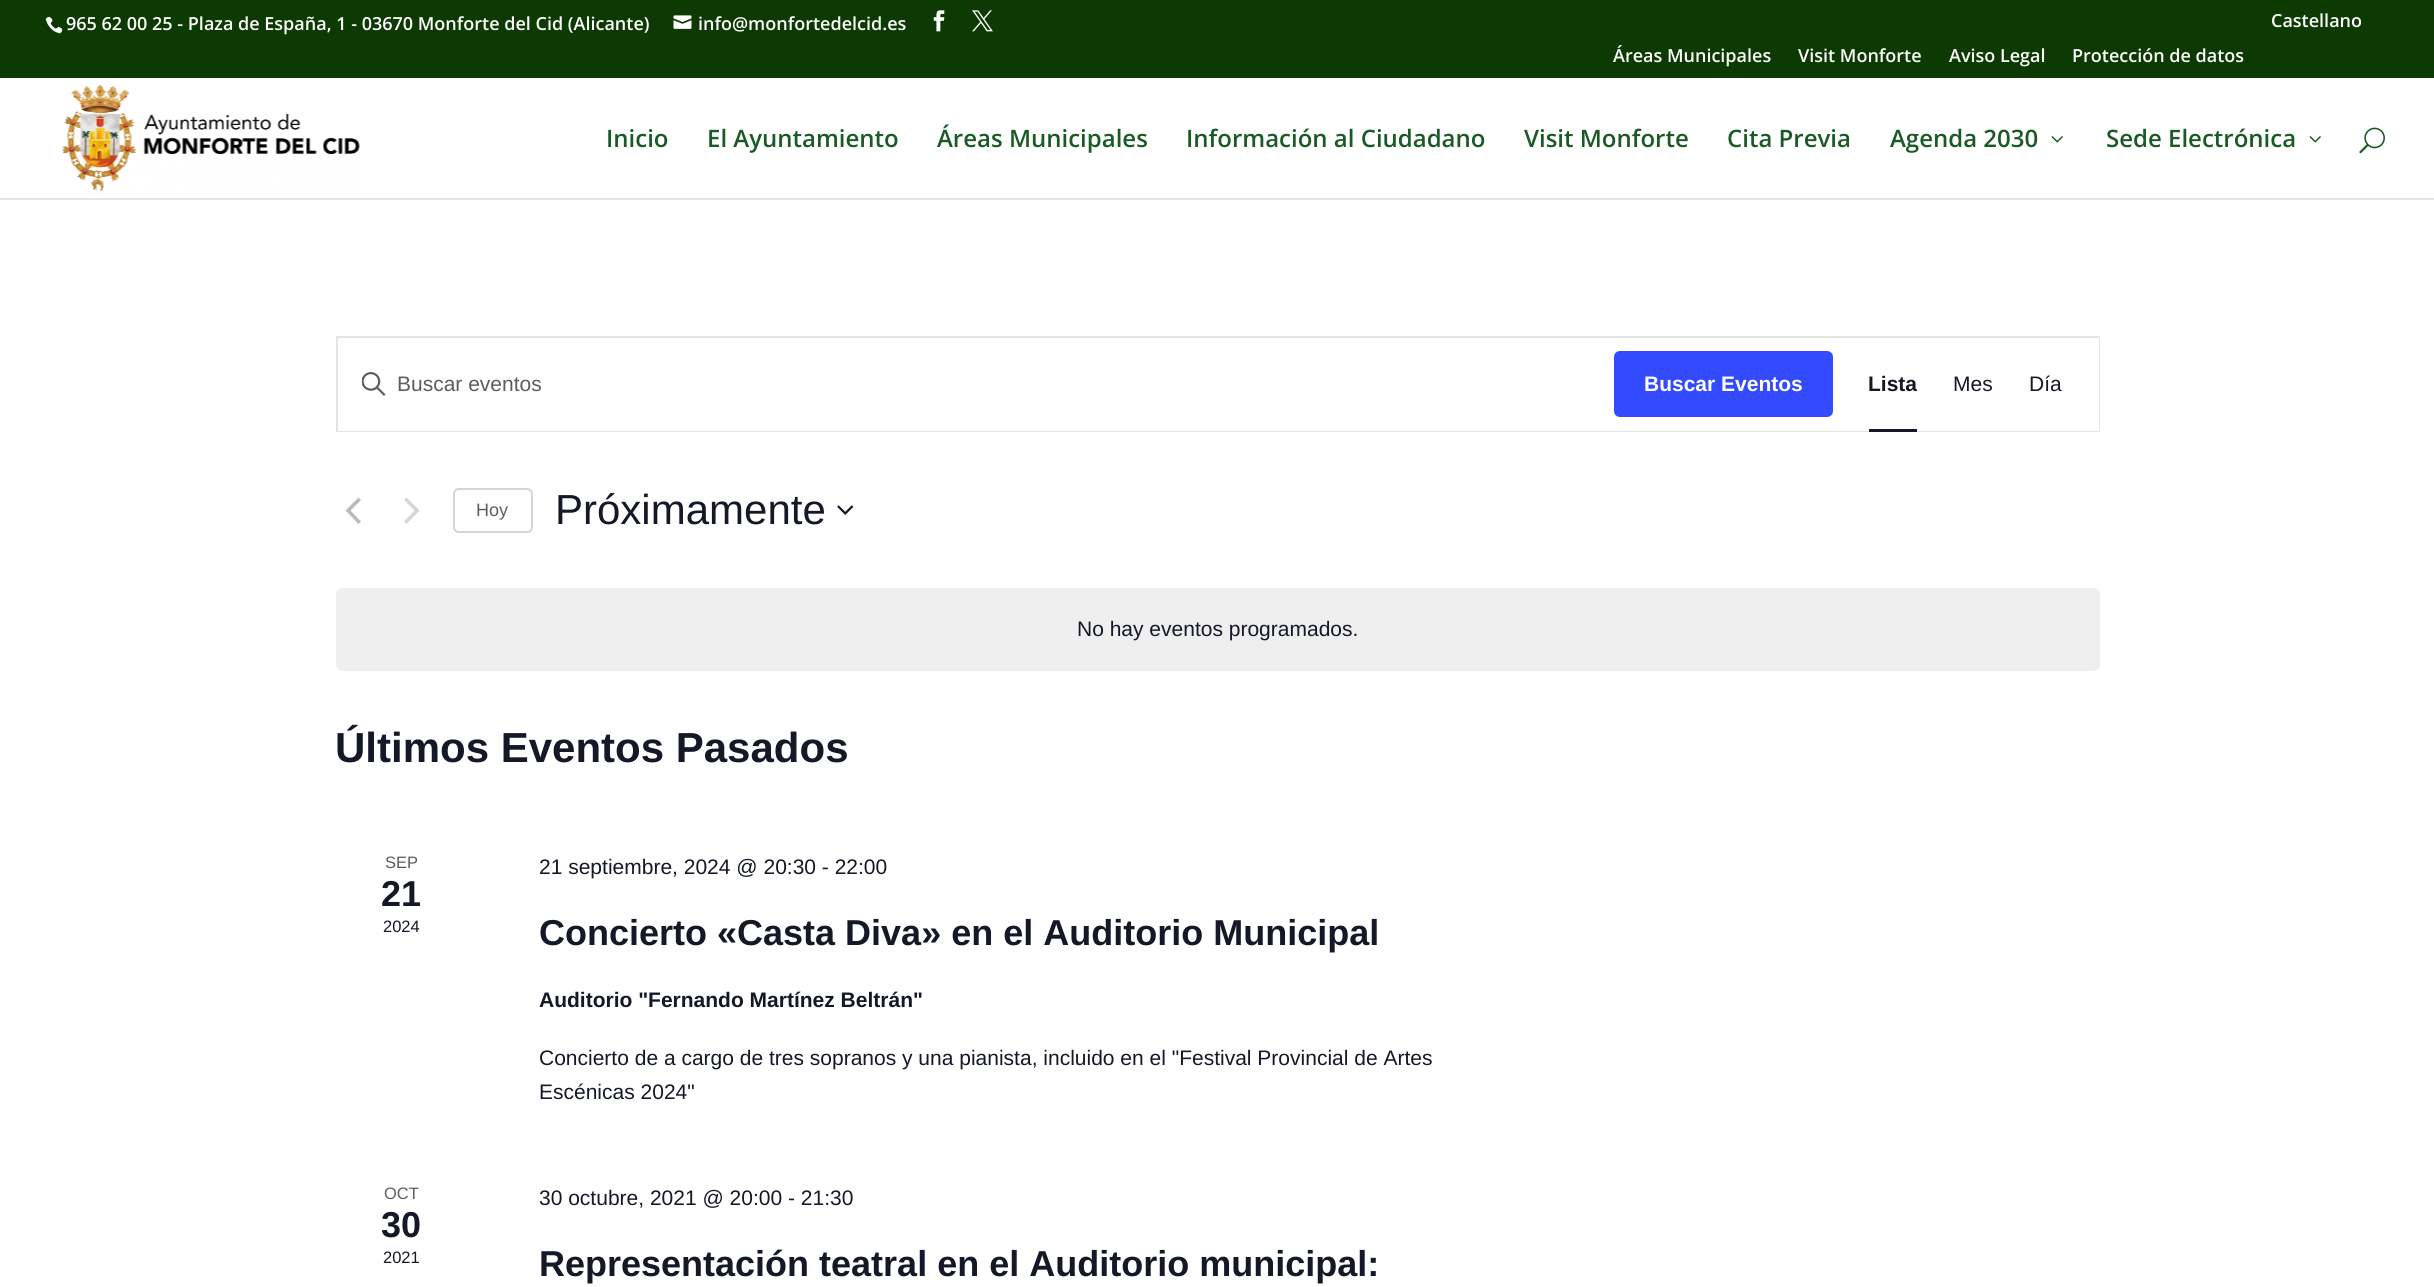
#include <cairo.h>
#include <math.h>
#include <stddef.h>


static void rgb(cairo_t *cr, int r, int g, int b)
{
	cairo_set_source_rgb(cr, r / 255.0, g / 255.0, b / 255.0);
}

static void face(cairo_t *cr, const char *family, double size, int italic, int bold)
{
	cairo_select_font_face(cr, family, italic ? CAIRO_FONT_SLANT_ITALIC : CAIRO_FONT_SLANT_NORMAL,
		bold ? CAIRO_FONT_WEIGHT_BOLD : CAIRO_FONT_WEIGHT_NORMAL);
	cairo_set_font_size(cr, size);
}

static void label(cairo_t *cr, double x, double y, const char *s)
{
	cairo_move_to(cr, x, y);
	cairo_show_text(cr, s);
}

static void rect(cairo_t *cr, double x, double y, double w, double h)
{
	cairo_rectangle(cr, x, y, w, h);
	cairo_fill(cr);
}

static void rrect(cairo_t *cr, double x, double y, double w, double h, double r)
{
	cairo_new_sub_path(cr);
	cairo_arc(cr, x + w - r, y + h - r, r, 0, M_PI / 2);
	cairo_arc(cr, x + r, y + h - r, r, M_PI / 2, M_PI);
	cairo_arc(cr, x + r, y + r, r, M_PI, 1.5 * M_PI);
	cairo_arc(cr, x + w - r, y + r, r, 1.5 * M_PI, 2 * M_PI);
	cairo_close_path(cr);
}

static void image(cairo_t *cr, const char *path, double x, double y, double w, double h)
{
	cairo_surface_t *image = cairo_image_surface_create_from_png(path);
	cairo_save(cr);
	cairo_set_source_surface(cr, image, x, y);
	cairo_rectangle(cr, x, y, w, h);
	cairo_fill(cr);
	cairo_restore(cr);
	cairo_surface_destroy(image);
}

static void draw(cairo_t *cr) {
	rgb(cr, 255, 255, 255);
	cairo_paint(cr);
	rgb(cr, 12, 58, 2);
	rect(cr, 0, 0, 2434, 78);
	image(cr, "image0.png", 45, 16, 18, 18);
	face(cr, "Open Sans SemiBold", 18, 0, 0);
	rgb(cr, 255, 255, 255);
	label(cr, 66, 30, "965 62 00 25 - Plaza de España, 1 - 03670 Monforte del Cid (Alicante)");
	image(cr, "image1.png", 673, 15, 19, 14);
	label(cr, 698, 30, "info@monfortedelcid.es");
	image(cr, "image2.png", 933, 10, 12, 22);
	image(cr, "image3.png", 972, 10, 21, 22);
	label(cr, 2271, 27, "Castellano");
	label(cr, 1613, 62, "Áreas Municipales");
	label(cr, 1798, 62, "Visit Monforte");
	label(cr, 1949, 62, "Aviso Legal");
	label(cr, 2072, 62, "Protección de datos");
	rgb(cr, 230, 230, 230);
	cairo_new_path(cr);
	cairo_move_to(cr, 0, 198);
	cairo_line_to(cr, 0, 200);
	cairo_line_to(cr, 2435, 200);
	cairo_line_to(cr, 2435, 80);
	cairo_line_to(cr, 2434, 80);
	cairo_line_to(cr, 2434, 198);
	cairo_close_path(cr);
	cairo_fill(cr);
	image(cr, "image4.png", 61, 84, 299, 107);
	face(cr, "Open Sans SemiBold", 24, 0, 0);
	rgb(cr, 26, 91, 37);
	label(cr, 606, 147, "Inicio");
	label(cr, 707, 147, "El Ayuntamiento");
	label(cr, 937, 147, "Áreas Municipales");
	label(cr, 1186, 147, "Información al Ciudadano");
	label(cr, 1524, 147, "Visit Monforte");
	label(cr, 1727, 147, "Cita Previa");
	label(cr, 1890, 147, "Agenda 2030");
	image(cr, "image5.png", 2051, 136, 12, 7);
	label(cr, 2106, 147, "Sede Electrónica");
	image(cr, "image5.png", 2309, 136, 12, 7);
	image(cr, "image6.png", 2359, 127, 26, 27);
	cairo_rectangle(cr, 337, 337, 1762, 94);
	rgb(cr, 228, 228, 228);
	cairo_stroke(cr);
	rgb(cr, 255, 255, 255);
	rect(cr, 338, 430, 1495, 1);
	image(cr, "image7.png", 362, 372, 24, 24);
	face(cr, "Liberation Sans", 21, 0, 0);
	rgb(cr, 93, 93, 93);
	label(cr, 397, 391, "Buscar eventos");
	rgb(cr, 51, 74, 255);
	rrect(cr, 1614, 351, 219, 66, 6);
	cairo_fill(cr);
	face(cr, "Liberation Sans", 21, 0, 1);
	rgb(cr, 255, 255, 255);
	label(cr, 1644, 391, "Buscar Eventos");
	rect(cr, 1833, 338, 266, 93);
	rgb(cr, 20, 24, 39);
	label(cr, 1868, 391, "Lista");
	rect(cr, 1869, 429, 48, 3);
	face(cr, "Liberation Sans", 21, 0, 0);
	label(cr, 1953, 391, "Mes");
	label(cr, 2029, 391, "Día");
	rgb(cr, 186, 186, 186);
	cairo_new_path(cr);
	cairo_move_to(cr, 361, 521.5);
	cairo_line_to(cr, 358.5, 524);
	cairo_line_to(cr, 345.5, 510.5);
	cairo_line_to(cr, 358.5, 497.5);
	cairo_line_to(cr, 361, 500);
	cairo_line_to(cr, 350.5, 510.5);
	cairo_close_path(cr);
	cairo_fill(cr);
	rgb(cr, 213, 213, 213);
	cairo_new_path(cr);
	cairo_move_to(cr, 404, 500);
	cairo_line_to(cr, 406.5, 497.5);
	cairo_line_to(cr, 419.5, 510.5);
	cairo_line_to(cr, 406.5, 524);
	cairo_line_to(cr, 404, 521.5);
	cairo_line_to(cr, 414.5, 510.5);
	cairo_close_path(cr);
	cairo_fill(cr);
	rrect(cr, 454, 489, 78, 43, 5);
	cairo_stroke(cr);
	face(cr, "Liberation Sans", 18, 0, 0);
	rgb(cr, 93, 93, 93);
	label(cr, 476, 516, "Hoy");
	face(cr, "Liberation Sans", 42, 0, 0);
	rgb(cr, 20, 24, 39);
	label(cr, 555, 524, "Próximamente");
	image(cr, "image8.png", 837, 505, 17, 10);
	rgb(cr, 239, 239, 240);
	rrect(cr, 336, 588, 1764, 83, 6);
	cairo_fill(cr);
	face(cr, "Liberation Sans", 21, 0, 0);
	rgb(cr, 20, 24, 39);
	label(cr, 1077, 636, "No hay eventos programados.");
	face(cr, "Liberation Sans", 42, 0, 1);
	label(cr, 335, 762, "Últimos Eventos Pasados");
	face(cr, "Liberation Sans", 16.5, 0, 0);
	rgb(cr, 93, 93, 93);
	label(cr, 385, 868, "SEP");
	face(cr, "Liberation Sans", 36, 0, 1);
	rgb(cr, 20, 24, 39);
	label(cr, 381, 906, "21");
	face(cr, "Liberation Sans", 16.5, 0, 0);
	label(cr, 383, 932, "2024");
	face(cr, "Liberation Sans", 21, 0, 0);
	label(cr, 539, 874, "21 septiembre, 2024 @ 20:30 - 22:00");
	face(cr, "Liberation Sans", 36, 0, 1);
	label(cr, 539, 945, "Concierto «Casta Diva» en el Auditorio Municipal");
	face(cr, "Liberation Sans", 21, 0, 1);
	label(cr, 539, 1007, "Auditorio \"Fernando Martínez Beltrán\"");
	face(cr, "Liberation Sans", 21, 0, 0);
	label(cr, 539, 1065, "Concierto de a cargo de tres sopranos y una pianista, incluido en el \"Festival Provincial de Artes");
	label(cr, 539, 1099, "Escénicas 2024\"");
	face(cr, "Liberation Sans", 16.5, 0, 0);
	rgb(cr, 93, 93, 93);
	label(cr, 384, 1199, "OCT");
	face(cr, "Liberation Sans", 36, 0, 1);
	rgb(cr, 20, 24, 39);
	label(cr, 381, 1237, "30");
	face(cr, "Liberation Sans", 16.5, 0, 0);
	label(cr, 383, 1263, "2021");
	face(cr, "Liberation Sans", 21, 0, 0);
	label(cr, 539, 1205, "30 octubre, 2021 @ 20:00 - 21:30");
	face(cr, "Liberation Sans", 36, 0, 1);
	label(cr, 539, 1276, "Representación teatral en el Auditorio municipal:");
}

int main(void) {
	cairo_surface_t *surface = cairo_image_surface_create(CAIRO_FORMAT_RGB24, 2434, 1287);
	cairo_t *cr = cairo_create(surface);
	cairo_font_options_t *options = cairo_font_options_create();
	cairo_font_options_set_hint_metrics(options, CAIRO_HINT_METRICS_OFF);
	cairo_font_options_set_hint_style(options, CAIRO_HINT_STYLE_NONE);
	cairo_set_font_options(cr, options);
	cairo_set_miter_limit(cr, 4);
	draw(cr);
	cairo_surface_write_to_png(surface, "render.png");
	cairo_font_options_destroy(options);
	cairo_destroy(cr);
	cairo_surface_destroy(surface);
	return 0;
}
